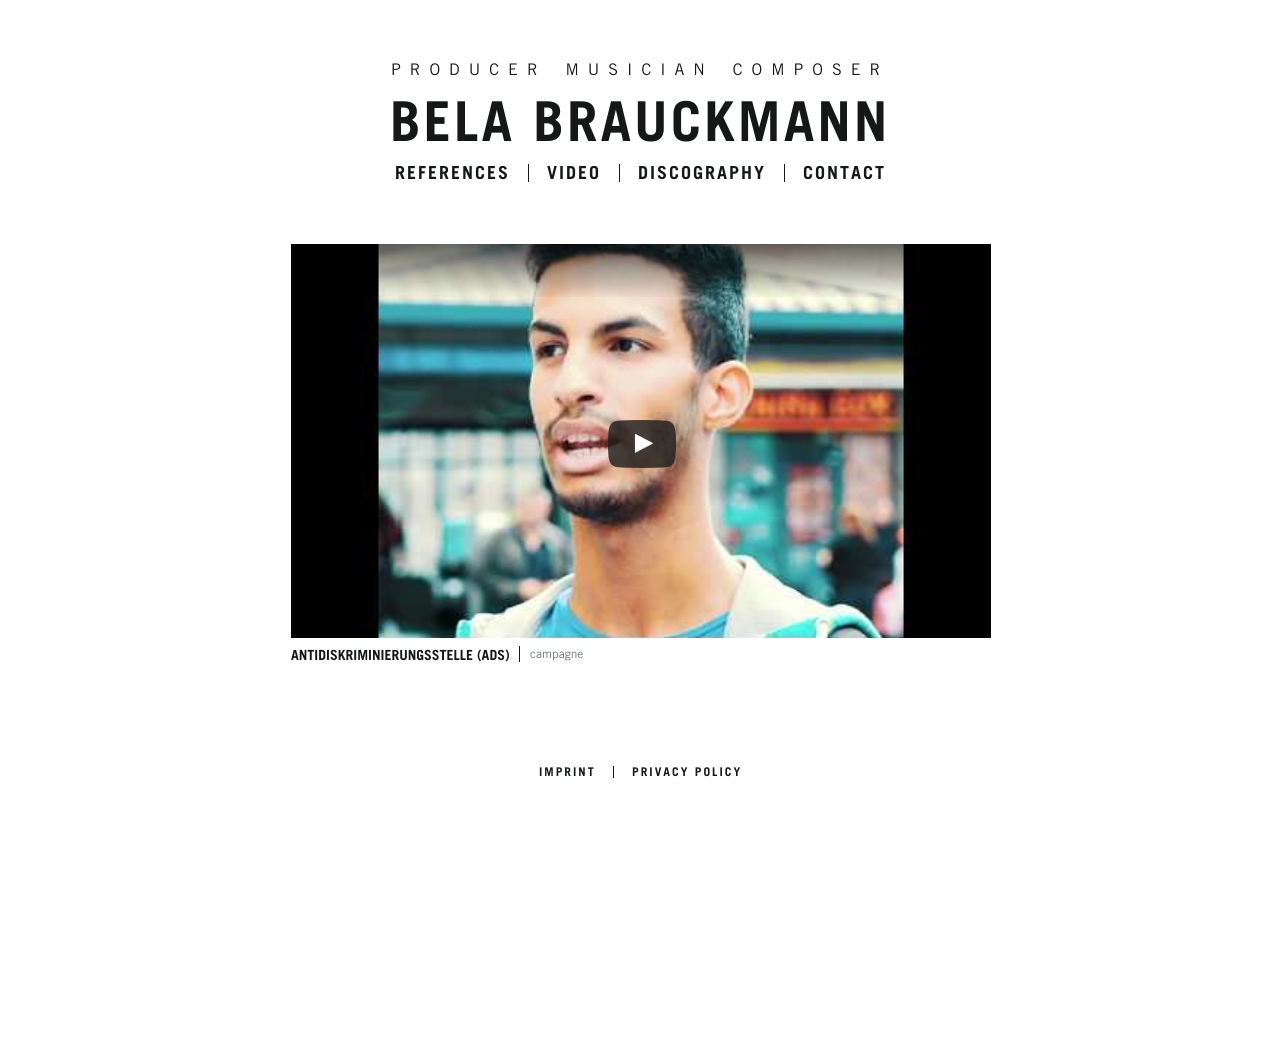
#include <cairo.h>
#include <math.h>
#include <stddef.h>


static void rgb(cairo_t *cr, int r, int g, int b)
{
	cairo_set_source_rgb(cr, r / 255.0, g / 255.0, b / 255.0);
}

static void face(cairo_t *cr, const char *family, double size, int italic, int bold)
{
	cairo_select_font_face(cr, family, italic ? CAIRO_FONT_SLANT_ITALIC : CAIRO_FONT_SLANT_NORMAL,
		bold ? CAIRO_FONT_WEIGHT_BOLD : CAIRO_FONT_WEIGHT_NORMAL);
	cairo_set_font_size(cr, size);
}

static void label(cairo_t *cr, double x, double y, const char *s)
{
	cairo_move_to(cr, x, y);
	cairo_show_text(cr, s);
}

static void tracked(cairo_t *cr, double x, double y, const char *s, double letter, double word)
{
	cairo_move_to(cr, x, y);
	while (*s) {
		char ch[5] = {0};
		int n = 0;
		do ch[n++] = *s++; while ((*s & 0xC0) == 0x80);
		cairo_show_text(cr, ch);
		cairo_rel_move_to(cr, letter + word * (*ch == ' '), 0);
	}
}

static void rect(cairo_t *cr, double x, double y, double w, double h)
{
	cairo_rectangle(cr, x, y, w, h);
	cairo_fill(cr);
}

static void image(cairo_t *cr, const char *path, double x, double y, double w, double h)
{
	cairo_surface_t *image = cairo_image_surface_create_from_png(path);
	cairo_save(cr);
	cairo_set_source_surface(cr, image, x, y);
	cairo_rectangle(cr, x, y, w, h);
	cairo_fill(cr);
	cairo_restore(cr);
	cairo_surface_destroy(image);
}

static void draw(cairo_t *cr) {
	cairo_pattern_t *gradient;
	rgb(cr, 255, 255, 255);
	cairo_paint(cr);
	face(cr, "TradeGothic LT", 16, 0, 0);
	rgb(cr, 22, 23, 23);
	tracked(cr, 391, 75, "PRODUCER MUSICIAN COMPOSER", 9, 5);
	face(cr, "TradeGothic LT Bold", 55, 0, 1);
	tracked(cr, 390, 141, "BELA BRAUCKMANN", 3, 0);
	rect(cr, 528, 164, 1, 18);
	face(cr, "TradeGothic LT Bold", 18, 0, 1);
	tracked(cr, 395, 179, "REFERENCES", 2, 0);
	rect(cr, 619, 164, 1, 18);
	tracked(cr, 547, 179, "VIDEO", 2, 0);
	rect(cr, 784, 164, 1, 18);
	tracked(cr, 638, 179, "DISCOGRAPHY", 2, 0);
	tracked(cr, 803, 179, "CONTACT", 2, 0);
	rgb(cr, 0, 0, 0);
	rect(cr, 291, 244, 700, 394);
	image(cr, "image0.png", 360, 244, 561, 394);
	gradient = cairo_pattern_create_linear(641, 244, 641, 299);
	cairo_pattern_add_color_stop_rgba(gradient, 0, 0, 0, 0, 0.6);
	cairo_pattern_add_color_stop_rgba(gradient, 1, 0, 0, 0, 0);
	cairo_set_source(cr, gradient);
	cairo_pattern_destroy(gradient);
	rect(cr, 373, 244, 536, 53);
	image(cr, "image1.png", 608, 420, 68, 48);
	face(cr, "TradeGothic LT Bold", 14, 0, 1);
	rgb(cr, 22, 23, 23);
	label(cr, 291, 660, "ANTIDISKRIMINIERUNGSSTELLE (ADS)");
	rect(cr, 519, 646, 1, 16);
	face(cr, "TradeGothic LT", 12, 0, 0);
	rgb(cr, 108, 116, 120);
	label(cr, 530, 658, "campagne");
	rgb(cr, 22, 23, 23);
	rect(cr, 613, 766, 1, 12);
	face(cr, "TradeGothic LT Bold", 12, 0, 1);
	tracked(cr, 539, 776, "IMPRINT", 2, 0);
	tracked(cr, 632, 776, "PRIVACY POLICY", 2, 0);
}

int main(void) {
	cairo_surface_t *surface = cairo_image_surface_create(CAIRO_FORMAT_RGB24, 1281, 1054);
	cairo_t *cr = cairo_create(surface);
	cairo_font_options_t *options = cairo_font_options_create();
	cairo_font_options_set_hint_metrics(options, CAIRO_HINT_METRICS_OFF);
	cairo_font_options_set_hint_style(options, CAIRO_HINT_STYLE_NONE);
	cairo_set_font_options(cr, options);
	cairo_set_miter_limit(cr, 4);
	draw(cr);
	cairo_surface_write_to_png(surface, "render.png");
	cairo_font_options_destroy(options);
	cairo_destroy(cr);
	cairo_surface_destroy(surface);
	return 0;
}
